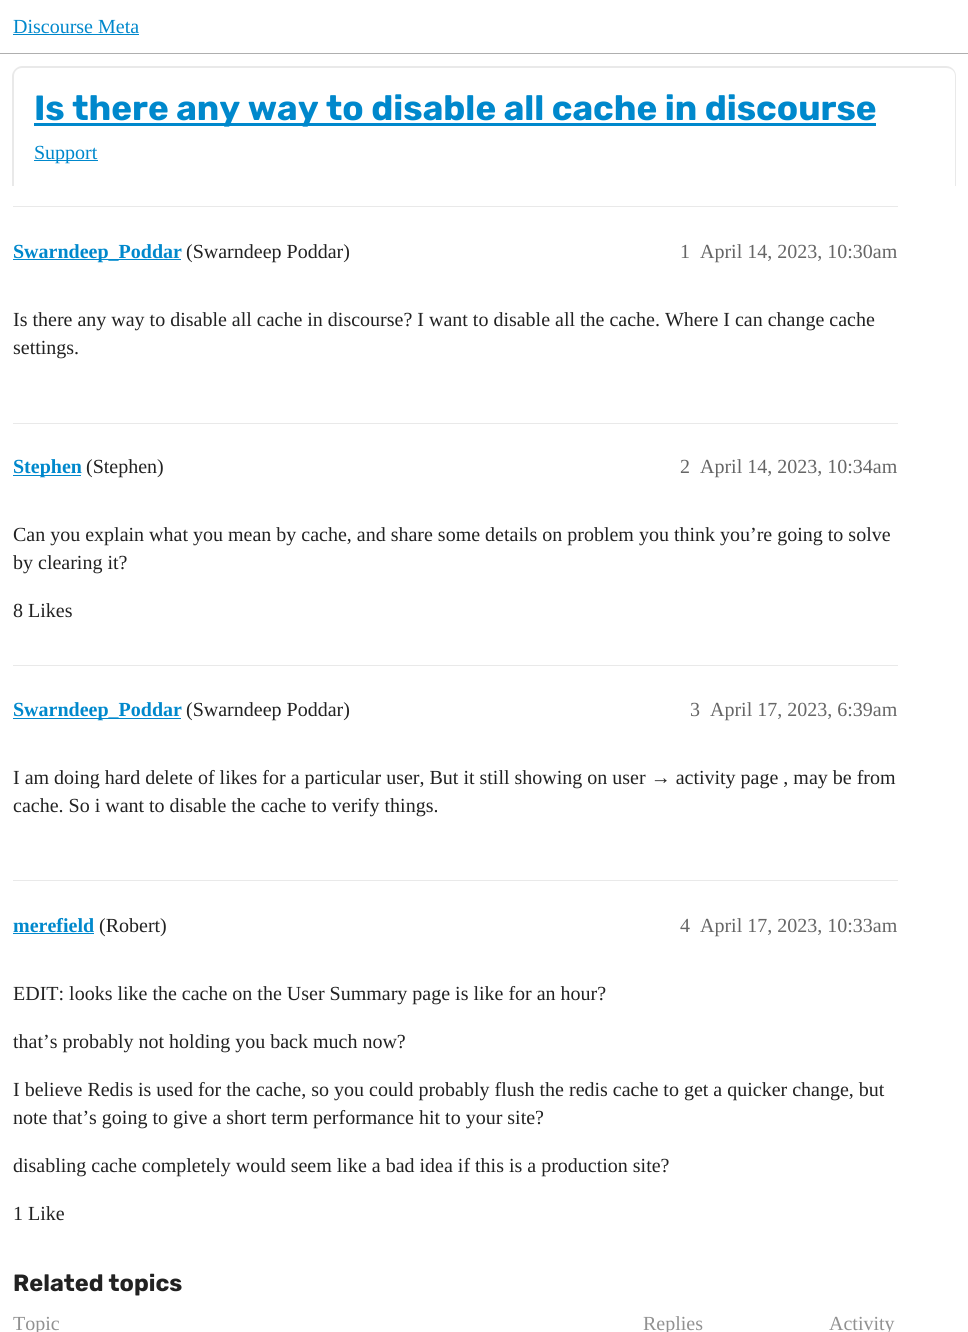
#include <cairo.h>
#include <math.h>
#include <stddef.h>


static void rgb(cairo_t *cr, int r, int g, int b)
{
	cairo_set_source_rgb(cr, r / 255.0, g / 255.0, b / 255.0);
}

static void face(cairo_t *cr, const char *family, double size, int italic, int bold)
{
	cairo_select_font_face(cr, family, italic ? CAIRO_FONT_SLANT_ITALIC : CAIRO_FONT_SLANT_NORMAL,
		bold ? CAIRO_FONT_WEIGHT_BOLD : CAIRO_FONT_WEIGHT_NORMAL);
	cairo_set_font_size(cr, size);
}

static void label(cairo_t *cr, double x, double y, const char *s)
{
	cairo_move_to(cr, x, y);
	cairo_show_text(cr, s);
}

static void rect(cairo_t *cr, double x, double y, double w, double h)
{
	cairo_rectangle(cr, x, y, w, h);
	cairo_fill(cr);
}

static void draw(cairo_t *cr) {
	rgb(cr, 255, 255, 255);
	cairo_paint(cr);
	rgb(cr, 175, 175, 175);
	rect(cr, 0, 53, 968, 1);
	face(cr, "Liberation Serif", 20, 0, 0);
	rgb(cr, 0, 136, 204);
	label(cr, 13, 33, "Discourse Meta");
	rect(cr, 13, 34, 126, 1);
	rgb(cr, 233, 233, 233);
	cairo_set_fill_rule(cr, CAIRO_FILL_RULE_EVEN_ODD);
	cairo_new_path(cr);
	cairo_move_to(cr, 22, 66);
	cairo_line_to(cr, 946, 66);
	cairo_curve_to(cr, 952, 66, 956, 71, 956, 76);
	cairo_line_to(cr, 956, 186);
	cairo_line_to(cr, 12, 186);
	cairo_line_to(cr, 12, 76);
	cairo_curve_to(cr, 12, 71, 17, 66, 22, 66);
	cairo_close_path(cr);
	cairo_move_to(cr, 22, 68);
	cairo_line_to(cr, 946, 68);
	cairo_curve_to(cr, 951, 68, 955, 71, 955, 76);
	cairo_line_to(cr, 955, 186);
	cairo_line_to(cr, 14, 186);
	cairo_line_to(cr, 14, 76);
	cairo_curve_to(cr, 14, 71, 18, 68, 22, 68);
	cairo_close_path(cr);
	cairo_fill(cr);
	rgb(cr, 0, 136, 204);
	rect(cr, 34, 123, 842, 3);
	face(cr, "Rubik", 35, 0, 1);
	label(cr, 34, 120, "Is there any way to disable all cache in discourse");
	rect(cr, 34, 160, 64, 1);
	face(cr, "Liberation Serif", 20, 0, 0);
	label(cr, 34, 159, "Support");
	rgb(cr, 233, 233, 233);
	rect(cr, 13, 206, 885, 1);
	rgb(cr, 0, 136, 204);
	rect(cr, 13, 259, 168, 1);
	face(cr, "Liberation Serif", 20, 0, 1);
	label(cr, 13, 258, "Swarndeep_Poddar");
	face(cr, "Liberation Serif", 20, 0, 0);
	rgb(cr, 34, 34, 34);
	label(cr, 186, 258, "(Swarndeep Poddar)");
	rgb(cr, 102, 102, 102);
	label(cr, 680, 258, "1");
	label(cr, 700, 258, "April 14, 2023, 10:30am");
	rgb(cr, 34, 34, 34);
	label(cr, 13, 326, "Is there any way to disable all cache in discourse? I want to disable all the cache. Where I can change cache");
	label(cr, 13, 354, "settings.");
	rgb(cr, 233, 233, 233);
	rect(cr, 13, 423, 885, 1);
	rgb(cr, 0, 136, 204);
	rect(cr, 13, 475, 68, 1);
	face(cr, "Liberation Serif", 20, 0, 1);
	label(cr, 13, 473, "Stephen");
	face(cr, "Liberation Serif", 20, 0, 0);
	rgb(cr, 34, 34, 34);
	label(cr, 86, 473, "(Stephen)");
	rgb(cr, 102, 102, 102);
	label(cr, 680, 473, "2");
	label(cr, 700, 473, "April 14, 2023, 10:34am");
	rgb(cr, 34, 34, 34);
	label(cr, 13, 541, "Can you explain what you mean by cache, and share some details on problem you think you’re going to solve");
	label(cr, 13, 569, "by clearing it?");
	label(cr, 13, 617, "8 Likes");
	rgb(cr, 233, 233, 233);
	rect(cr, 13, 665, 885, 1);
	rgb(cr, 0, 136, 204);
	rect(cr, 13, 718, 168, 1);
	face(cr, "Liberation Serif", 20, 0, 1);
	label(cr, 13, 716, "Swarndeep_Poddar");
	face(cr, "Liberation Serif", 20, 0, 0);
	rgb(cr, 34, 34, 34);
	label(cr, 186, 716, "(Swarndeep Poddar)");
	rgb(cr, 102, 102, 102);
	label(cr, 690, 716, "3");
	label(cr, 710, 716, "April 17, 2023, 6:39am");
	rgb(cr, 34, 34, 34);
	label(cr, 13, 784, "I am doing hard delete of likes for a particular user, But it still showing on user → activity page , may be from");
	label(cr, 13, 812, "cache. So i want to disable the cache to verify things.");
	rgb(cr, 233, 233, 233);
	rect(cr, 13, 880, 885, 1);
	face(cr, "Liberation Serif", 20, 0, 1);
	rgb(cr, 0, 136, 204);
	label(cr, 13, 932, "merefield");
	rect(cr, 13, 933, 81, 1);
	face(cr, "Liberation Serif", 20, 0, 0);
	rgb(cr, 34, 34, 34);
	label(cr, 99, 932, "(Robert)");
	rgb(cr, 102, 102, 102);
	label(cr, 680, 932, "4");
	label(cr, 700, 932, "April 17, 2023, 10:33am");
	rgb(cr, 34, 34, 34);
	label(cr, 13, 1000, "EDIT: looks like the cache on the User Summary page is like for an hour?");
	label(cr, 13, 1048, "that’s probably not holding you back much now?");
	label(cr, 13, 1096, "I believe Redis is used for the cache, so you could probably flush the redis cache to get a quicker change, but");
	label(cr, 13, 1124, "note that’s going to give a short term performance hit to your site?");
	label(cr, 13, 1172, "disabling cache completely would seem like a bad idea if this is a production site?");
	label(cr, 13, 1220, "1 Like");
	face(cr, "Rubik", 23.5, 0, 1);
	label(cr, 13, 1291, "Related topics");
	cairo_save(cr);
	cairo_set_fill_rule(cr, CAIRO_FILL_RULE_WINDING);
	cairo_rectangle(cr, 13, 1310, 943, 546);
	cairo_clip(cr);
	face(cr, "Liberation Serif", 20, 0, 0);
	rgb(cr, 145, 145, 145);
	label(cr, 13, 1330, "Topic");
	cairo_restore(cr);
	face(cr, "Liberation Serif", 20, 0, 0);
	rgb(cr, 145, 145, 145);
	label(cr, 643, 1330, "Replies");
	label(cr, 829, 1330, "Activity");
}

int main(void) {
	cairo_surface_t *surface = cairo_image_surface_create(CAIRO_FORMAT_RGB24, 968, 1332);
	cairo_t *cr = cairo_create(surface);
	cairo_font_options_t *options = cairo_font_options_create();
	cairo_font_options_set_hint_metrics(options, CAIRO_HINT_METRICS_OFF);
	cairo_font_options_set_hint_style(options, CAIRO_HINT_STYLE_NONE);
	cairo_set_font_options(cr, options);
	cairo_set_miter_limit(cr, 4);
	draw(cr);
	cairo_surface_write_to_png(surface, "render.png");
	cairo_font_options_destroy(options);
	cairo_destroy(cr);
	cairo_surface_destroy(surface);
	return 0;
}
